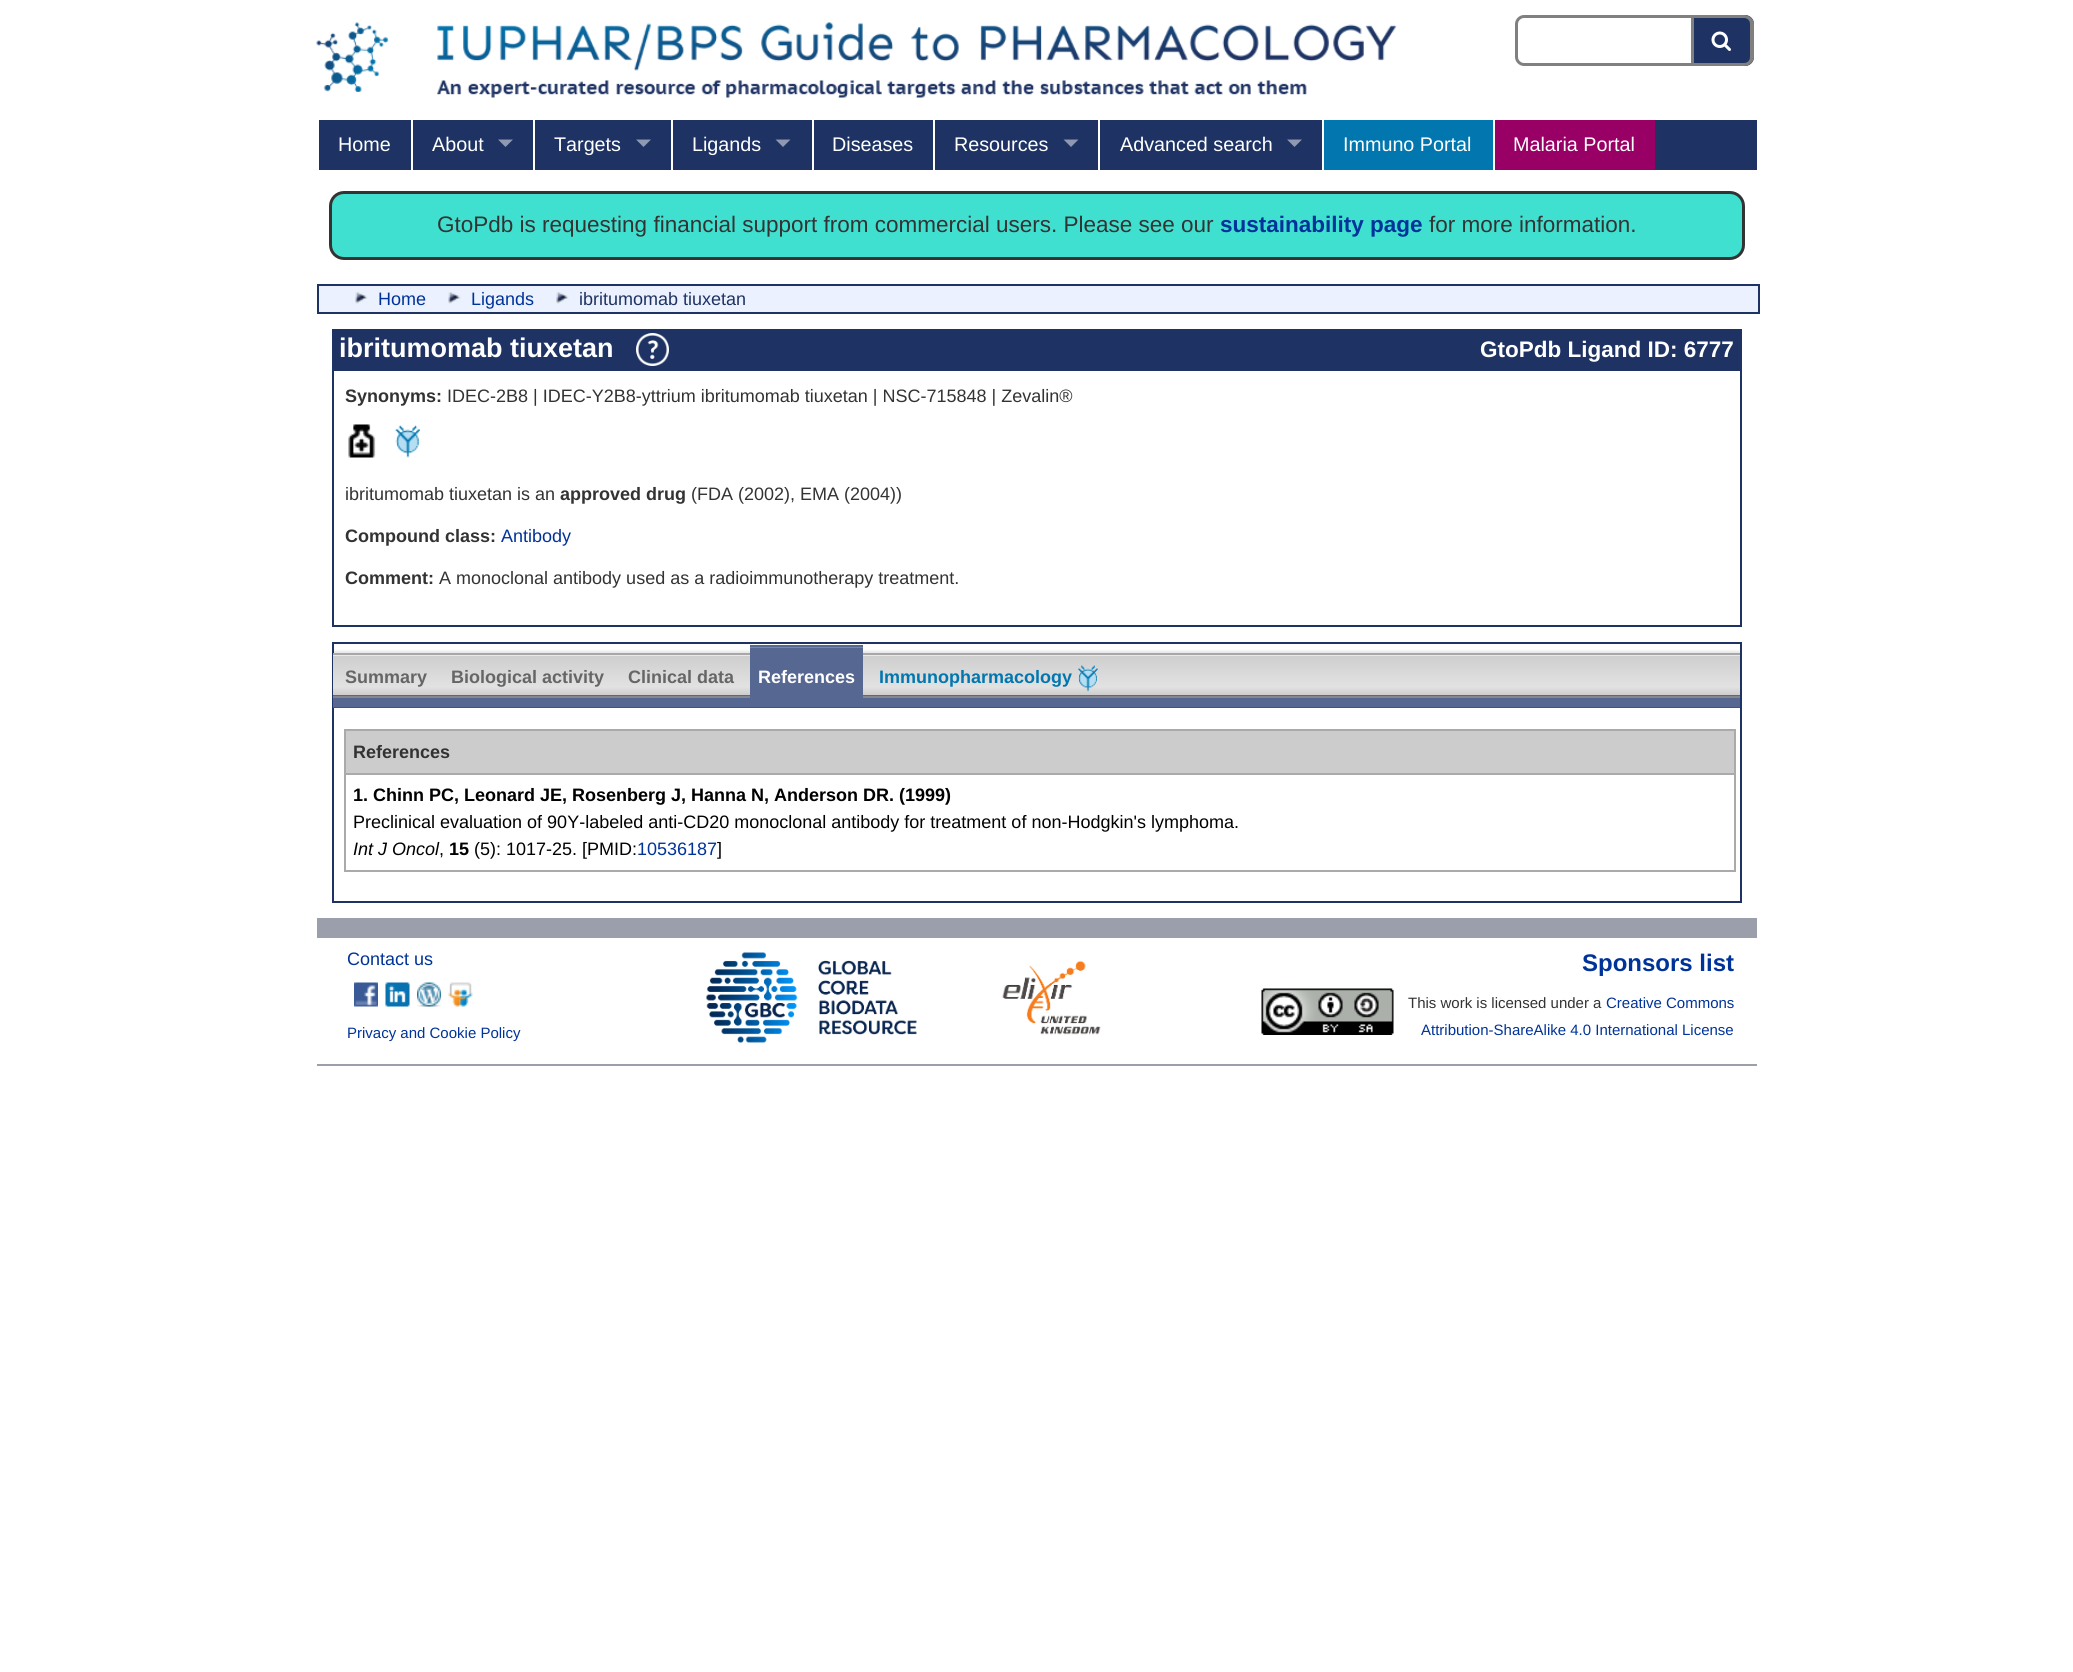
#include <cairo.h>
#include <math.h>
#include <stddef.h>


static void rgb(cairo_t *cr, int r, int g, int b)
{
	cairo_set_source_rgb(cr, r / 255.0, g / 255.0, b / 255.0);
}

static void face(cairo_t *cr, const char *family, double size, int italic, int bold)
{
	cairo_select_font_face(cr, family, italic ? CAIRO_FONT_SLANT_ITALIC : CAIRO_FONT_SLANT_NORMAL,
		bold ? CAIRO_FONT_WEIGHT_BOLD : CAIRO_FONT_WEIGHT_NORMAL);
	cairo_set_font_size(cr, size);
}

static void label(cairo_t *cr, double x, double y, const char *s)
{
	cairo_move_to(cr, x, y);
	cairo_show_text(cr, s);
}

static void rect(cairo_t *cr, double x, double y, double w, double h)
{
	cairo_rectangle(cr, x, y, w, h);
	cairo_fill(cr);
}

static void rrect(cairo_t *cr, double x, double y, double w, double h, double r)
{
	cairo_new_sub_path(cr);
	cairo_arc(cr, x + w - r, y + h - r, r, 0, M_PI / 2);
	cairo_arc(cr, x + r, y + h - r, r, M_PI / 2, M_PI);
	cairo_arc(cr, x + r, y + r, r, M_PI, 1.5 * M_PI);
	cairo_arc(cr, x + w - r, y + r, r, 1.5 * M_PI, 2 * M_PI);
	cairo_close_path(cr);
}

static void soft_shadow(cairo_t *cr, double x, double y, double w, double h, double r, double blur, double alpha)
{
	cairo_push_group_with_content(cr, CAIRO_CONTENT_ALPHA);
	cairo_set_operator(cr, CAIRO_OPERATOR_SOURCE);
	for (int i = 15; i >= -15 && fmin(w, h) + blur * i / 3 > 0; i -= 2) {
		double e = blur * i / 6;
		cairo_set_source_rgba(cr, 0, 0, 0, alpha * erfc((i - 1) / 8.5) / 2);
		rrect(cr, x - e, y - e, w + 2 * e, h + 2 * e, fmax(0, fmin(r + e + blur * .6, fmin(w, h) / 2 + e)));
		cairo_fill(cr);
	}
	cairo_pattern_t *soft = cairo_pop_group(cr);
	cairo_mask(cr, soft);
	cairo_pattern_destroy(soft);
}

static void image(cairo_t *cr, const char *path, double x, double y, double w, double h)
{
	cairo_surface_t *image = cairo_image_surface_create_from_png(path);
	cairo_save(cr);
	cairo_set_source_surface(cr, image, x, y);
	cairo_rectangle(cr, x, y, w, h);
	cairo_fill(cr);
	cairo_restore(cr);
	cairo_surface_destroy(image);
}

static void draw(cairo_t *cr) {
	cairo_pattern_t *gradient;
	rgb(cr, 255, 255, 255);
	cairo_paint(cr);
	image(cr, "image0.png", 316, 22, 1081, 76);
	cairo_new_path(cr);
	cairo_move_to(cr, 1524, 16.5);
	cairo_line_to(cr, 1692.5, 16.5);
	cairo_line_to(cr, 1692.5, 64.5);
	cairo_line_to(cr, 1524, 64.5);
	cairo_curve_to(cr, 1520, 64.5, 1516.5, 61, 1516.5, 57);
	cairo_line_to(cr, 1516.5, 24);
	cairo_curve_to(cr, 1516.5, 20, 1520, 16.5, 1524, 16.5);
	cairo_close_path(cr);
	rgb(cr, 128, 128, 128);
	cairo_set_line_width(cr, 3);
	cairo_stroke(cr);
	rgb(cr, 30, 51, 99);
	cairo_new_path(cr);
	cairo_move_to(cr, 1694, 15);
	cairo_line_to(cr, 1745, 15);
	cairo_curve_to(cr, 1750, 15, 1754, 19, 1754, 24);
	cairo_line_to(cr, 1754, 57);
	cairo_curve_to(cr, 1754, 62, 1750, 66, 1745, 66);
	cairo_line_to(cr, 1694, 66);
	cairo_close_path(cr);
	cairo_fill(cr);
	rgb(cr, 128, 128, 128);
	cairo_set_fill_rule(cr, CAIRO_FILL_RULE_EVEN_ODD);
	cairo_new_path(cr);
	cairo_move_to(cr, 1694, 15);
	cairo_line_to(cr, 1744, 15);
	cairo_curve_to(cr, 1749, 15, 1754, 19, 1754, 24);
	cairo_line_to(cr, 1754, 57);
	cairo_curve_to(cr, 1754, 62, 1749, 66, 1744, 66);
	cairo_line_to(cr, 1694, 66);
	cairo_close_path(cr);
	cairo_move_to(cr, 1694, 18);
	cairo_line_to(cr, 1744, 18);
	cairo_curve_to(cr, 1748, 18, 1750, 21, 1750, 24);
	cairo_line_to(cr, 1750, 57);
	cairo_curve_to(cr, 1750, 60, 1748, 63, 1744, 63);
	cairo_line_to(cr, 1694, 63);
	cairo_close_path(cr);
	cairo_fill(cr);
	image(cr, "image1.png", 1711, 31, 20, 20);
	rgb(cr, 30, 51, 99);
	rect(cr, 319, 120, 1438, 50);
	face(cr, "Liberation Sans", 19.75, 0, 0);
	rgb(cr, 255, 255, 255);
	label(cr, 338, 151, "Home");
	rect(cr, 411, 120, 2, 50);
	label(cr, 432, 151, "About");
	rgb(cr, 143, 153, 177);
	cairo_set_fill_rule(cr, CAIRO_FILL_RULE_WINDING);
	cairo_new_path(cr);
	cairo_move_to(cr, 498, 139.5);
	cairo_line_to(cr, 513, 139.5);
	cairo_line_to(cr, 505.5, 147);
	cairo_close_path(cr);
	cairo_fill(cr);
	rgb(cr, 255, 255, 255);
	rect(cr, 533, 120, 2, 50);
	label(cr, 554, 151, "Targets");
	rgb(cr, 143, 153, 177);
	cairo_new_path(cr);
	cairo_move_to(cr, 636, 139.5);
	cairo_line_to(cr, 651, 139.5);
	cairo_line_to(cr, 643.5, 147);
	cairo_close_path(cr);
	cairo_fill(cr);
	rgb(cr, 255, 255, 255);
	rect(cr, 671, 120, 2, 50);
	label(cr, 692, 151, "Ligands");
	rgb(cr, 143, 153, 177);
	cairo_new_path(cr);
	cairo_move_to(cr, 775.5, 139.5);
	cairo_line_to(cr, 790.5, 139.5);
	cairo_line_to(cr, 783, 147);
	cairo_close_path(cr);
	cairo_fill(cr);
	rgb(cr, 255, 255, 255);
	rect(cr, 812, 120, 2, 50);
	label(cr, 832, 151, "Diseases");
	rect(cr, 933, 120, 2, 50);
	label(cr, 954, 151, "Resources");
	rgb(cr, 143, 153, 177);
	cairo_new_path(cr);
	cairo_move_to(cr, 1063.5, 139.5);
	cairo_line_to(cr, 1078.5, 139.5);
	cairo_line_to(cr, 1071, 147);
	cairo_close_path(cr);
	cairo_fill(cr);
	rgb(cr, 255, 255, 255);
	rect(cr, 1098, 120, 2, 50);
	label(cr, 1120, 151, "Advanced search");
	rgb(cr, 143, 153, 177);
	cairo_new_path(cr);
	cairo_move_to(cr, 1287, 139.5);
	cairo_line_to(cr, 1302, 139.5);
	cairo_line_to(cr, 1294.5, 147);
	cairo_close_path(cr);
	cairo_fill(cr);
	rgb(cr, 1, 118, 175);
	rect(cr, 1324, 120, 169, 50);
	rgb(cr, 255, 255, 255);
	rect(cr, 1322, 120, 2, 50);
	label(cr, 1343, 151, "Immuno Portal");
	rgb(cr, 153, 0, 102);
	rect(cr, 1495, 120, 160, 50);
	rgb(cr, 255, 255, 255);
	rect(cr, 1493, 120, 2, 50);
	label(cr, 1513, 151, "Malaria Portal");
	rgb(cr, 64, 224, 208);
	rrect(cr, 330.5, 192.5, 1413, 66, 13.5);
	cairo_fill_preserve(cr);
	rgb(cr, 51, 51, 51);
	cairo_stroke(cr);
	face(cr, "Liberation Sans", 22.5, 0, 0);
	label(cr, 437, 232, "GtoPdb is requesting financial support from commercial users. Please see our");
	face(cr, "Liberation Sans", 22.5, 0, 1);
	rgb(cr, 0, 51, 153);
	label(cr, 1220, 232, "sustainability page");
	face(cr, "Liberation Sans", 22.5, 0, 0);
	rgb(cr, 51, 51, 51);
	label(cr, 1429, 232, "for more information.");
	rgb(cr, 235, 241, 255);
	cairo_rectangle(cr, 318, 285, 1441, 28);
	cairo_fill_preserve(cr);
	rgb(cr, 30, 51, 99);
	cairo_set_line_width(cr, 2);
	cairo_stroke(cr);
	image(cr, "image2.png", 355, 292, 13, 12);
	face(cr, "Liberation Sans", 18, 0, 0);
	rgb(cr, 0, 51, 153);
	label(cr, 378, 305, "Home");
	image(cr, "image2.png", 448, 292, 13, 12);
	label(cr, 471, 305, "Ligands");
	image(cr, "image3.png", 556, 292, 13, 12);
	rgb(cr, 30, 51, 99);
	label(cr, 579, 305, "ibritumomab tiuxetan");
	rect(cr, 332, 329, 1410, 40);
	face(cr, "Liberation Sans", 27, 0, 1);
	rgb(cr, 255, 255, 255);
	label(cr, 339, 357, "ibritumomab tiuxetan");
	image(cr, "image4.png", 636, 333, 33, 33);
	face(cr, "Liberation Sans", 22.5, 0, 1);
	label(cr, 1480, 357, "GtoPdb Ligand ID: 6777");
	cairo_rectangle(cr, 333, 370, 1408, 256);
	rgb(cr, 30, 51, 99);
	cairo_stroke(cr);
	face(cr, "Liberation Sans", 18, 0, 1);
	rgb(cr, 51, 51, 51);
	label(cr, 345, 402, "Synonyms:");
	face(cr, "Liberation Sans", 18, 0, 0);
	label(cr, 447, 402, "IDEC-2B8 | IDEC-Y2B8-yttrium ibritumomab tiuxetan | NSC-715848 | Zevalin®");
	image(cr, "image5.png", 348, 424, 28, 34);
	image(cr, "image6.png", 395, 425, 25, 33);
	label(cr, 345, 500, "ibritumomab tiuxetan is an");
	face(cr, "Liberation Sans", 18, 0, 1);
	label(cr, 560, 500, "approved drug");
	face(cr, "Liberation Sans", 18, 0, 0);
	label(cr, 691, 500, "(FDA (2002), EMA (2004))");
	face(cr, "Liberation Sans", 18, 0, 1);
	label(cr, 345, 542, "Compound class:");
	face(cr, "Liberation Sans", 18, 0, 0);
	rgb(cr, 0, 51, 153);
	label(cr, 501, 542, "Antibody");
	face(cr, "Liberation Sans", 18, 0, 1);
	rgb(cr, 51, 51, 51);
	label(cr, 345, 584, "Comment:");
	face(cr, "Liberation Sans", 18, 0, 0);
	label(cr, 439, 584, "A monoclonal antibody used as a radioimmunotherapy treatment.");
	cairo_rectangle(cr, 333, 643, 1408, 259);
	rgb(cr, 30, 51, 99);
	cairo_stroke(cr);
	rgb(cr, 0, 0, 0);
	soft_shadow(cr, 333, 651, 1407, 42, 0, 1, 0.1);
	rgb(cr, 69, 83, 117);
	rect(cr, 333, 707, 1407, 1);
	rgb(cr, 86, 104, 146);
	rect(cr, 333, 698, 1407, 9);
	rgb(cr, 133, 135, 140);
	rect(cr, 333, 696, 1407, 2);
	rgb(cr, 86, 104, 146);
	rect(cr, 333, 695, 1407, 1);
	gradient = cairo_pattern_create_linear(1037, 654, 1037, 695);
	cairo_pattern_add_color_stop_rgba(gradient, 0, 0.804, 0.804, 0.804, 1);
	cairo_pattern_add_color_stop_rgba(gradient, 0.8, 0.886, 0.886, 0.886, 1);
	cairo_pattern_add_color_stop_rgba(gradient, 1, 0.804, 0.804, 0.804, 1);
	cairo_set_source(cr, gradient);
	cairo_pattern_destroy(gradient);
	rect(cr, 333, 656, 1407, 39);
	rgb(cr, 233, 233, 233);
	rect(cr, 333, 655, 1407, 1);
	rgb(cr, 168, 168, 168);
	rect(cr, 333, 653, 1407, 2);
	face(cr, "Liberation Sans", 18, 0, 1);
	rgb(cr, 102, 102, 102);
	label(cr, 345, 683, "Summary");
	label(cr, 451, 683, "Biological activity");
	label(cr, 628, 683, "Clinical data");
	rgb(cr, 86, 104, 146);
	cairo_new_path(cr);
	cairo_move_to(cr, 750, 645);
	cairo_line_to(cr, 750, 654);
	cairo_line_to(cr, 862, 654);
	cairo_line_to(cr, 862, 690);
	cairo_line_to(cr, 863, 690);
	cairo_line_to(cr, 863, 645);
	cairo_close_path(cr);
	cairo_fill(cr);
	rgb(cr, 133, 135, 140);
	cairo_new_path(cr);
	cairo_move_to(cr, 750, 647);
	cairo_line_to(cr, 750, 654);
	cairo_line_to(cr, 862, 654);
	cairo_line_to(cr, 862, 692);
	cairo_line_to(cr, 863, 692);
	cairo_line_to(cr, 863, 647);
	cairo_close_path(cr);
	cairo_fill(cr);
	rgb(cr, 86, 104, 146);
	cairo_new_path(cr);
	cairo_move_to(cr, 750, 648);
	cairo_line_to(cr, 750, 654);
	cairo_line_to(cr, 862, 654);
	cairo_line_to(cr, 862, 693);
	cairo_line_to(cr, 863, 693);
	cairo_line_to(cr, 863, 648);
	cairo_close_path(cr);
	cairo_fill(cr);
	rect(cr, 750, 654, 113, 44);
	rgb(cr, 255, 255, 255);
	label(cr, 758, 683, "References");
	rgb(cr, 1, 118, 175);
	label(cr, 879, 683, "Immunopharmacology");
	image(cr, "image7.png", 1078, 665, 20, 27);
	rgb(cr, 204, 204, 204);
	rect(cr, 346, 731, 1388, 42);
	rgb(cr, 170, 170, 170);
	rect(cr, 344, 729, 1392, 2);
	rect(cr, 344, 773, 1392, 2);
	rect(cr, 1734, 773, 2, 99);
	rect(cr, 1734, 729, 2, 45);
	rect(cr, 344, 870, 1392, 2);
	rect(cr, 344, 773, 2, 99);
	rect(cr, 344, 729, 2, 45);
	rgb(cr, 51, 51, 51);
	label(cr, 353, 758, "References");
	rgb(cr, 0, 0, 0);
	label(cr, 353, 801, "1. Chinn PC, Leonard JE, Rosenberg J, Hanna N, Anderson DR. (1999)");
	face(cr, "Liberation Sans", 18, 0, 0);
	label(cr, 353, 828, "Preclinical evaluation of 90Y-labeled anti-CD20 monoclonal antibody for treatment of non-Hodgkin's lymphoma.");
	face(cr, "Liberation Sans", 18, 1, 0);
	label(cr, 353, 855, "Int J Oncol");
	face(cr, "Liberation Sans", 18, 0, 0);
	label(cr, 439, 855, ",");
	face(cr, "Liberation Sans", 18, 0, 1);
	label(cr, 449, 855, "15");
	face(cr, "Liberation Sans", 18, 0, 0);
	label(cr, 474, 855, "(5): 1017-25. [PMID:");
	rgb(cr, 0, 51, 153);
	label(cr, 637, 855, "10536187");
	rgb(cr, 0, 0, 0);
	label(cr, 717, 855, "]");
	rgb(cr, 155, 159, 171);
	rect(cr, 317, 918, 1440, 20);
	rect(cr, 317, 1064, 1440, 2);
	rgb(cr, 0, 51, 153);
	label(cr, 347, 965, "Contact us");
	image(cr, "image8.png", 354, 982, 24, 25);
	image(cr, "image9.png", 385, 982, 25, 25);
	image(cr, "image10.png", 417, 982, 24, 25);
	image(cr, "image11.png", 448, 982, 25, 25);
	face(cr, "Liberation Sans", 15, 0, 0);
	label(cr, 347, 1038, "Privacy and Cookie Policy");
	image(cr, "image12.png", 706, 952, 211, 91);
	image(cr, "image13.png", 1002, 960, 99, 75);
	face(cr, "Liberation Sans", 24, 0, 1);
	label(cr, 1582, 971, "Sponsors list");
	image(cr, "image14.png", 1261, 988, 133, 47);
	face(cr, "Liberation Sans", 15, 0, 0);
	rgb(cr, 51, 51, 51);
	label(cr, 1408, 1008, "This work is licensed under a");
	rgb(cr, 0, 51, 153);
	label(cr, 1606, 1008, "Creative Commons");
	label(cr, 1421, 1035, "Attribution-ShareAlike 4.0 International License");
}

int main(void) {
	cairo_surface_t *surface = cairo_image_surface_create(CAIRO_FORMAT_RGB24, 2073, 1672);
	cairo_t *cr = cairo_create(surface);
	cairo_font_options_t *options = cairo_font_options_create();
	cairo_font_options_set_hint_metrics(options, CAIRO_HINT_METRICS_OFF);
	cairo_font_options_set_hint_style(options, CAIRO_HINT_STYLE_NONE);
	cairo_set_font_options(cr, options);
	cairo_set_miter_limit(cr, 4);
	draw(cr);
	cairo_surface_write_to_png(surface, "render.png");
	cairo_font_options_destroy(options);
	cairo_destroy(cr);
	cairo_surface_destroy(surface);
	return 0;
}
